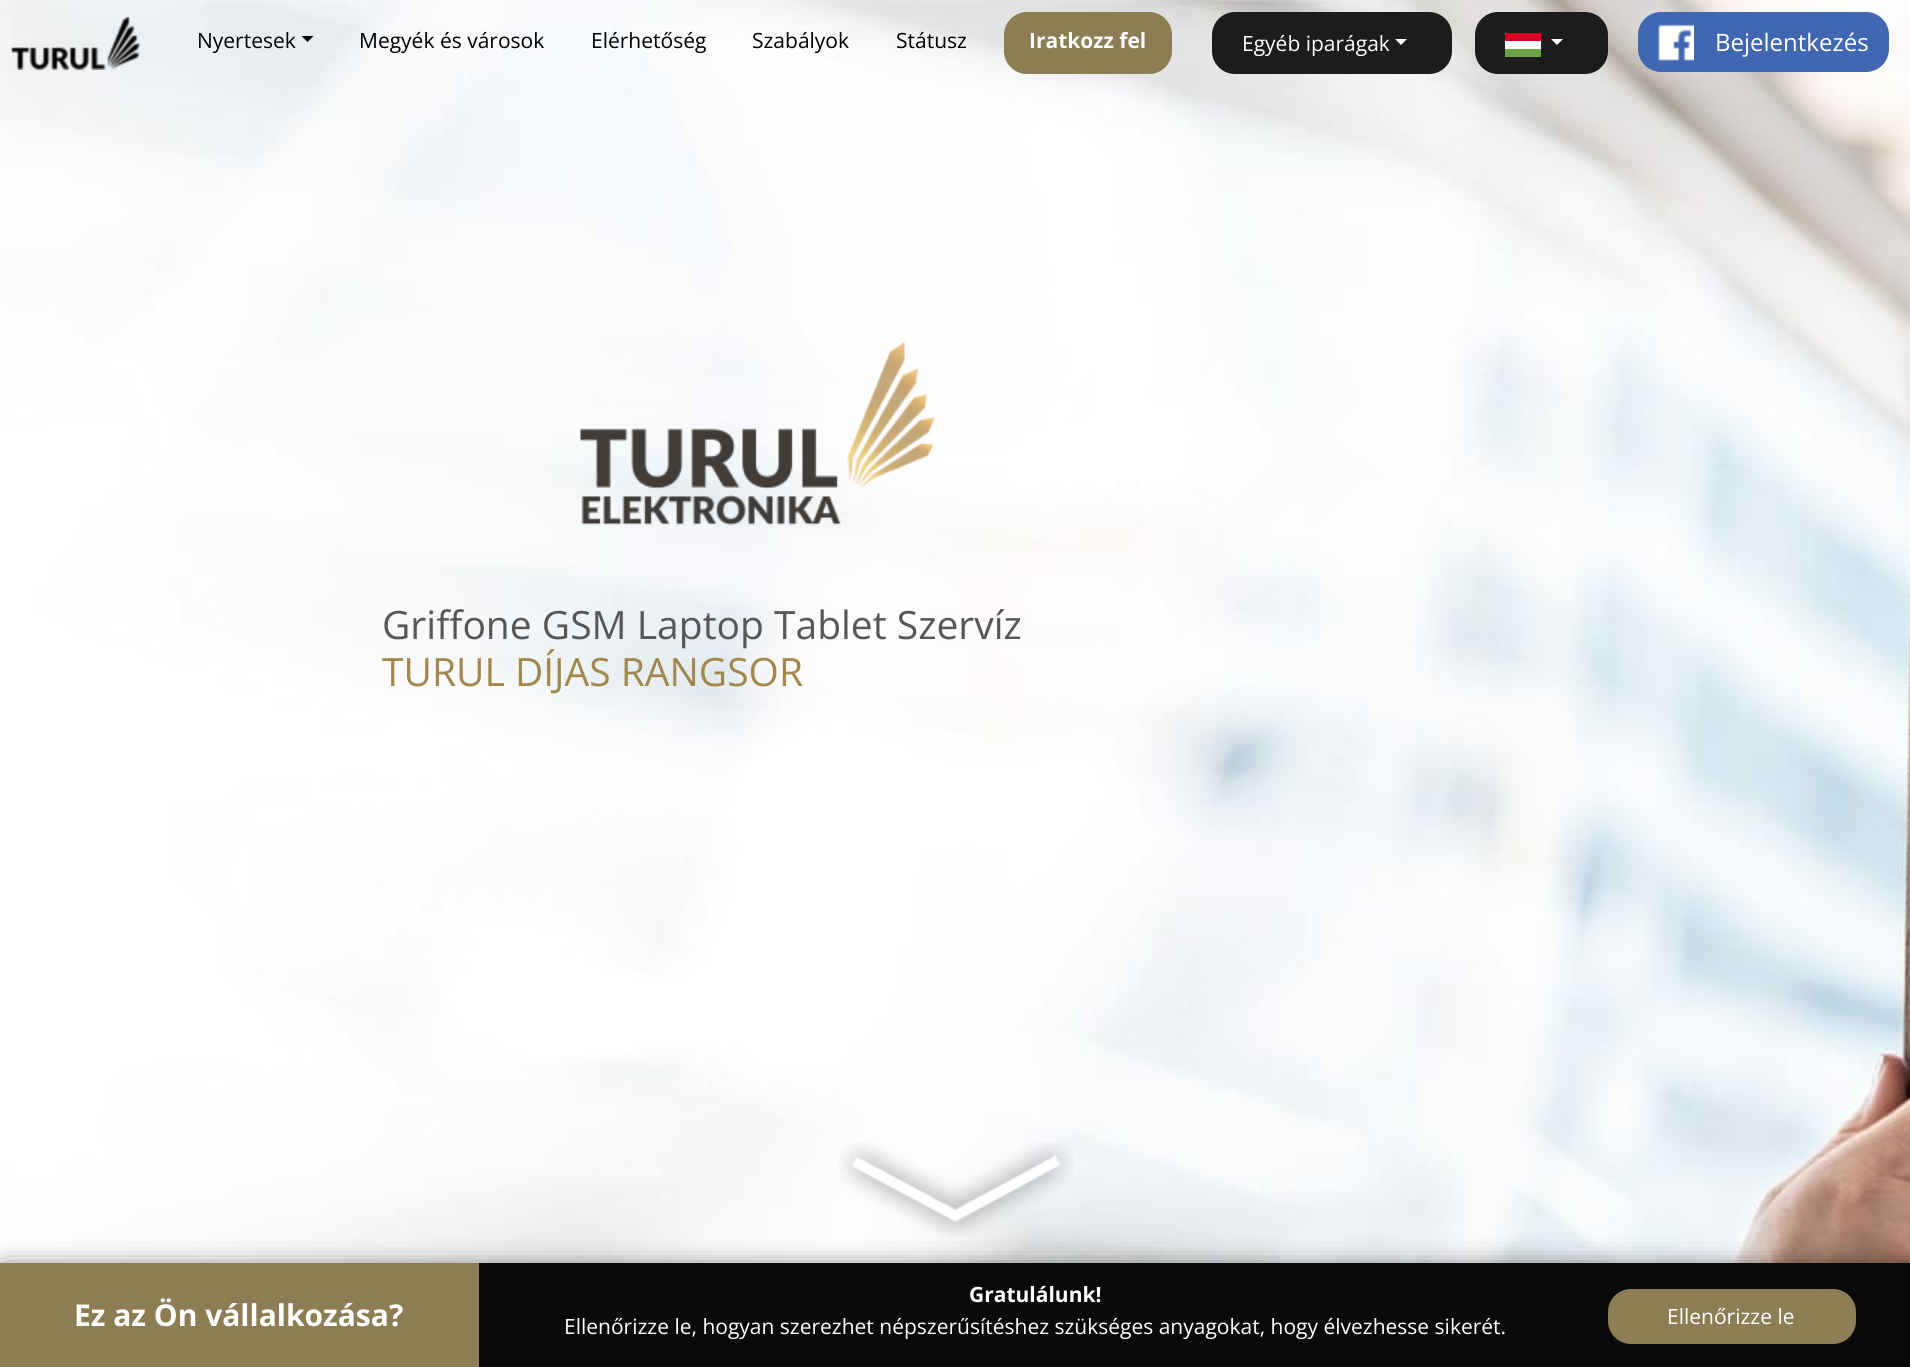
#include <cairo.h>
#include <math.h>
#include <stddef.h>


static void rgb(cairo_t *cr, int r, int g, int b)
{
	cairo_set_source_rgb(cr, r / 255.0, g / 255.0, b / 255.0);
}

static void face(cairo_t *cr, const char *family, double size, int italic, int bold)
{
	cairo_select_font_face(cr, family, italic ? CAIRO_FONT_SLANT_ITALIC : CAIRO_FONT_SLANT_NORMAL,
		bold ? CAIRO_FONT_WEIGHT_BOLD : CAIRO_FONT_WEIGHT_NORMAL);
	cairo_set_font_size(cr, size);
}

static void label(cairo_t *cr, double x, double y, const char *s)
{
	cairo_move_to(cr, x, y);
	cairo_show_text(cr, s);
}

static void rect(cairo_t *cr, double x, double y, double w, double h)
{
	cairo_rectangle(cr, x, y, w, h);
	cairo_fill(cr);
}

static void rrect(cairo_t *cr, double x, double y, double w, double h, double r)
{
	cairo_new_sub_path(cr);
	cairo_arc(cr, x + w - r, y + h - r, r, 0, M_PI / 2);
	cairo_arc(cr, x + r, y + h - r, r, M_PI / 2, M_PI);
	cairo_arc(cr, x + r, y + r, r, M_PI, 1.5 * M_PI);
	cairo_arc(cr, x + w - r, y + r, r, 1.5 * M_PI, 2 * M_PI);
	cairo_close_path(cr);
}

static void soft_shadow(cairo_t *cr, double x, double y, double w, double h, double r, double blur, double alpha)
{
	cairo_push_group_with_content(cr, CAIRO_CONTENT_ALPHA);
	cairo_set_operator(cr, CAIRO_OPERATOR_SOURCE);
	for (int i = 15; i >= -15 && fmin(w, h) + blur * i / 3 > 0; i -= 2) {
		double e = blur * i / 6;
		cairo_set_source_rgba(cr, 0, 0, 0, alpha * erfc((i - 1) / 8.5) / 2);
		rrect(cr, x - e, y - e, w + 2 * e, h + 2 * e, fmax(0, fmin(r + e + blur * .6, fmin(w, h) / 2 + e)));
		cairo_fill(cr);
	}
	cairo_pattern_t *soft = cairo_pop_group(cr);
	cairo_mask(cr, soft);
	cairo_pattern_destroy(soft);
}

static void image(cairo_t *cr, const char *path, double x, double y, double w, double h)
{
	cairo_surface_t *image = cairo_image_surface_create_from_png(path);
	cairo_save(cr);
	cairo_set_source_surface(cr, image, x, y);
	cairo_rectangle(cr, x, y, w, h);
	cairo_fill(cr);
	cairo_restore(cr);
	cairo_surface_destroy(image);
}

static void draw(cairo_t *cr) {
	rgb(cr, 255, 255, 255);
	cairo_paint(cr);
	image(cr, "image2.png", 0, 0, 1910, 1263);
	image(cr, "image0.png", 11, 17, 129, 53);
	face(cr, "Open Sans", 21, 0, 0);
	rgb(cr, 0, 0, 0);
	label(cr, 197, 48, "Nyertesek");
	cairo_new_path(cr);
	cairo_move_to(cr, 301.5, 36);
	cairo_line_to(cr, 313.5, 36);
	cairo_line_to(cr, 307.5, 42);
	cairo_close_path(cr);
	cairo_fill(cr);
	label(cr, 359, 48, "Megyék és városok");
	label(cr, 591, 48, "Elérhetőség");
	label(cr, 752, 48, "Szabályok");
	label(cr, 896, 48, "Státusz");
	rgb(cr, 140, 125, 84);
	rrect(cr, 1004, 12, 168, 62, 23);
	cairo_fill(cr);
	face(cr, "Open Sans", 21, 0, 1);
	rgb(cr, 255, 255, 255);
	label(cr, 1029, 48, "Iratkozz fel");
	rgb(cr, 29, 28, 28);
	rrect(cr, 1212, 12, 240, 62, 23);
	cairo_fill(cr);
	face(cr, "Open Sans", 21, 0, 0);
	rgb(cr, 255, 255, 255);
	label(cr, 1242, 51, "Egyéb iparágak");
	cairo_new_path(cr);
	cairo_move_to(cr, 1395, 39);
	cairo_line_to(cr, 1407, 39);
	cairo_line_to(cr, 1401, 45);
	cairo_close_path(cr);
	cairo_fill(cr);
	rgb(cr, 29, 28, 28);
	rrect(cr, 1475, 12, 133, 62, 23);
	cairo_fill(cr);
	rgb(cr, 216, 0, 39);
	rect(cr, 1505, 33, 36, 8);
	rgb(cr, 255, 255, 255);
	rect(cr, 1505, 41, 36, 8);
	cairo_new_path(cr);
	cairo_move_to(cr, 1551, 39);
	cairo_line_to(cr, 1563, 39);
	cairo_line_to(cr, 1557, 45);
	cairo_close_path(cr);
	cairo_fill(cr);
	rgb(cr, 109, 165, 68);
	rect(cr, 1505, 49, 36, 8);
	rgb(cr, 66, 103, 178);
	rrect(cr, 1639, 13, 249, 58, 22);
	cairo_fill_preserve(cr);
	cairo_stroke(cr);
	image(cr, "image1.png", 1658, 24, 36, 37);
	face(cr, "Open Sans", 24, 0, 0);
	rgb(cr, 255, 255, 255);
	label(cr, 1715, 51, "Bejelentkezés");
	image(cr, "image3.png", 580, 342, 355, 184);
	face(cr, "Open Sans", 39, 0, 0);
	rgb(cr, 87, 87, 87);
	label(cr, 382, 639, "Griffone GSM Laptop Tablet Szervíz");
	rgb(cr, 161, 136, 76);
	label(cr, 382, 686, "TURUL DÍJAS RANGSOR");
	image(cr, "image4.png", 839, 1142, 234, 95);
	rgb(cr, 0, 0, 0);
	soft_shadow(cr, 3, 1271, 1905, 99, 0, 13.5, 0.75);
	rgb(cr, 10, 10, 10);
	rect(cr, 479, 1263, 1431, 104);
	rgb(cr, 140, 125, 84);
	rect(cr, 0, 1263, 479, 104);
	face(cr, "Open Sans", 30, 0, 1);
	rgb(cr, 255, 255, 255);
	label(cr, 74, 1326, "Ez az Ön vállalkozása?");
	face(cr, "Open Sans", 21, 0, 1);
	label(cr, 969, 1302, "Gratulálunk!");
	face(cr, "Open Sans", 21, 0, 0);
	label(cr, 564, 1334, "Ellenőrizze le, hogyan szerezhet népszerűsítéshez szükséges anyagokat, hogy élvezhesse sikerét.");
	rgb(cr, 140, 125, 84);
	rrect(cr, 1608, 1289, 248, 55, 23);
	cairo_fill(cr);
	rgb(cr, 255, 255, 255);
	label(cr, 1667, 1324, "Ellenőrizze le");
}

int main(void) {
	cairo_surface_t *surface = cairo_image_surface_create(CAIRO_FORMAT_RGB24, 1910, 1367);
	cairo_t *cr = cairo_create(surface);
	cairo_font_options_t *options = cairo_font_options_create();
	cairo_font_options_set_hint_metrics(options, CAIRO_HINT_METRICS_OFF);
	cairo_font_options_set_hint_style(options, CAIRO_HINT_STYLE_NONE);
	cairo_set_font_options(cr, options);
	cairo_set_miter_limit(cr, 4);
	draw(cr);
	cairo_surface_write_to_png(surface, "render.png");
	cairo_font_options_destroy(options);
	cairo_destroy(cr);
	cairo_surface_destroy(surface);
	return 0;
}
